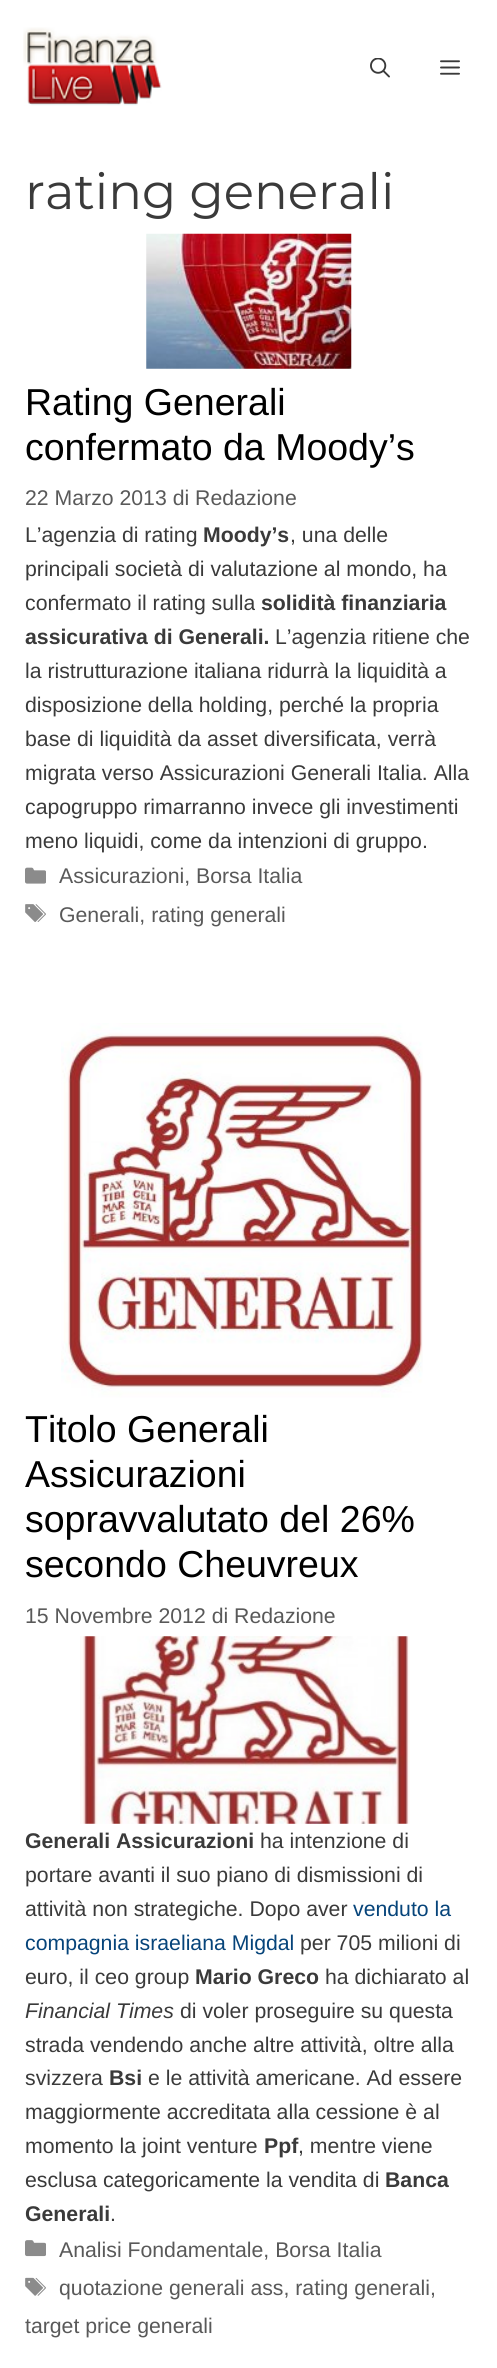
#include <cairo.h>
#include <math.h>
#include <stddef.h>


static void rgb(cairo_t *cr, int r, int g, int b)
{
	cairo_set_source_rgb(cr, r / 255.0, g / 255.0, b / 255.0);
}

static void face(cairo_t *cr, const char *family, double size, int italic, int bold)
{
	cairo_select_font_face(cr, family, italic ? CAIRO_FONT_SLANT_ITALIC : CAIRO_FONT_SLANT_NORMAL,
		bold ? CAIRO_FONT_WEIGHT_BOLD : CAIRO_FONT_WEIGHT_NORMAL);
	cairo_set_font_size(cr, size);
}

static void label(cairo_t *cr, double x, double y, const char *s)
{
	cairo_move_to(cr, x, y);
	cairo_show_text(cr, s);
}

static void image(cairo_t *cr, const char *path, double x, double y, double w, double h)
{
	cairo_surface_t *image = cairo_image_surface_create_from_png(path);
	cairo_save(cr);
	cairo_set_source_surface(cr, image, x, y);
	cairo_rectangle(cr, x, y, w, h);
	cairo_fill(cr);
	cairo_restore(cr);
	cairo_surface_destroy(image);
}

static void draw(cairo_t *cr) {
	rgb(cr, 255, 255, 255);
	cairo_paint(cr);
	image(cr, "image0.png", 23, 27, 139, 79);
	image(cr, "image1.png", 370, 58, 20, 20);
	image(cr, "image2.png", 440, 60, 20, 15);
	face(cr, "Montserrat", 50, 0, 0);
	rgb(cr, 58, 58, 58);
	label(cr, 25, 209, "rating generali");
	image(cr, "image3.png", 146, 233, 206, 136);
	face(cr, "Liberation Sans", 37.5, 0, 0);
	rgb(cr, 0, 0, 0);
	label(cr, 25, 415, "Rating Generali");
	label(cr, 25, 460, "confermato da Moody’s");
	face(cr, "Liberation Sans", 21.25, 0, 0);
	rgb(cr, 89, 89, 89);
	label(cr, 25, 505, "22 Marzo 2013 di Redazione");
	rgb(cr, 58, 58, 58);
	label(cr, 25, 542, "L’agenzia di rating");
	face(cr, "Liberation Sans", 21.25, 0, 1);
	label(cr, 203, 542, "Moody’s");
	face(cr, "Liberation Sans", 21.25, 0, 0);
	label(cr, 290, 542, ", una delle");
	label(cr, 25, 576, "principali società di valutazione al mondo, ha");
	label(cr, 25, 610, "confermato il rating sulla");
	face(cr, "Liberation Sans", 21.25, 0, 1);
	label(cr, 261, 610, "solidità finanziaria");
	label(cr, 25, 644, "assicurativa di Generali.");
	face(cr, "Liberation Sans", 21.25, 0, 0);
	label(cr, 275, 644, "L’agenzia ritiene che");
	label(cr, 25, 678, "la ristrutturazione italiana ridurrà la liquidità a");
	label(cr, 25, 712, "disposizione della holding, perché la propria");
	label(cr, 25, 746, "base di liquidità da asset diversificata, verrà");
	label(cr, 25, 780, "migrata verso Assicurazioni Generali Italia. Alla");
	label(cr, 25, 814, "capogruppo rimarranno invece gli investimenti");
	label(cr, 25, 848, "meno liquidi, come da intenzioni di gruppo.");
	image(cr, "image4.png", 25, 867, 21, 17);
	rgb(cr, 89, 89, 89);
	label(cr, 59, 883, "Assicurazioni, Borsa Italia");
	image(cr, "image5.png", 25, 904, 21, 18);
	label(cr, 59, 922, "Generali, rating generali");
	image(cr, "image6.png", 61, 1023, 362, 375);
	face(cr, "Liberation Sans", 37.5, 0, 0);
	rgb(cr, 0, 0, 0);
	label(cr, 25, 1442, "Titolo Generali");
	label(cr, 25, 1487, "Assicurazioni");
	label(cr, 25, 1532, "sopravvalutato del 26%");
	label(cr, 25, 1577, "secondo Cheuvreux");
	face(cr, "Liberation Sans", 21.25, 0, 0);
	rgb(cr, 89, 89, 89);
	label(cr, 25, 1623, "15 Novembre 2012 di Redazione");
	image(cr, "image7.png", 80, 1636, 330, 188);
	face(cr, "Liberation Sans", 21.25, 0, 1);
	rgb(cr, 58, 58, 58);
	label(cr, 25, 1848, "Generali Assicurazioni");
	face(cr, "Liberation Sans", 21.25, 0, 0);
	label(cr, 260, 1848, "ha intenzione di");
	label(cr, 25, 1882, "portare avanti il suo piano di dismissioni di");
	label(cr, 25, 1916, "attività non strategiche. Dopo aver");
	rgb(cr, 6, 68, 122);
	label(cr, 353, 1916, "venduto la");
	label(cr, 25, 1950, "compagnia israeliana Migdal");
	rgb(cr, 58, 58, 58);
	label(cr, 300, 1950, "per 705 milioni di");
	label(cr, 25, 1984, "euro, il ceo group");
	face(cr, "Liberation Sans", 21.25, 0, 1);
	label(cr, 195, 1984, "Mario Greco");
	face(cr, "Liberation Sans", 21.25, 0, 0);
	label(cr, 325, 1984, "ha dichiarato al");
	face(cr, "Liberation Sans", 21.25, 1, 0);
	label(cr, 25, 2018, "Financial Times");
	face(cr, "Liberation Sans", 21.25, 0, 0);
	label(cr, 180, 2018, "di voler proseguire su questa");
	label(cr, 25, 2052, "strada vendendo anche altre attività, oltre alla");
	label(cr, 25, 2085, "svizzera");
	face(cr, "Liberation Sans", 21.25, 0, 1);
	label(cr, 109, 2085, "Bsi");
	face(cr, "Liberation Sans", 21.25, 0, 0);
	label(cr, 148, 2085, "e le attività americane. Ad essere");
	label(cr, 25, 2119, "maggiormente accreditata alla cessione è al");
	label(cr, 25, 2153, "momento la joint venture");
	face(cr, "Liberation Sans", 21.25, 0, 1);
	label(cr, 264, 2153, "Ppf");
	face(cr, "Liberation Sans", 21.25, 0, 0);
	label(cr, 298, 2153, ", mentre viene");
	label(cr, 25, 2187, "esclusa categoricamente la vendita di");
	face(cr, "Liberation Sans", 21.25, 0, 1);
	label(cr, 385, 2187, "Banca");
	label(cr, 25, 2221, "Generali");
	face(cr, "Liberation Sans", 21.25, 0, 0);
	label(cr, 110, 2221, ".");
	image(cr, "image8.png", 25, 2240, 21, 17);
	rgb(cr, 89, 89, 89);
	label(cr, 59, 2257, "Analisi Fondamentale, Borsa Italia");
	image(cr, "image9.png", 25, 2277, 21, 19);
	label(cr, 59, 2295, "quotazione generali ass, rating generali,");
	label(cr, 25, 2333, "target price generali");
}

int main(void) {
	cairo_surface_t *surface = cairo_image_surface_create(CAIRO_FORMAT_RGB24, 497, 2368);
	cairo_t *cr = cairo_create(surface);
	cairo_font_options_t *options = cairo_font_options_create();
	cairo_font_options_set_hint_metrics(options, CAIRO_HINT_METRICS_OFF);
	cairo_font_options_set_hint_style(options, CAIRO_HINT_STYLE_NONE);
	cairo_set_font_options(cr, options);
	cairo_set_miter_limit(cr, 4);
	draw(cr);
	cairo_surface_write_to_png(surface, "render.png");
	cairo_font_options_destroy(options);
	cairo_destroy(cr);
	cairo_surface_destroy(surface);
	return 0;
}
